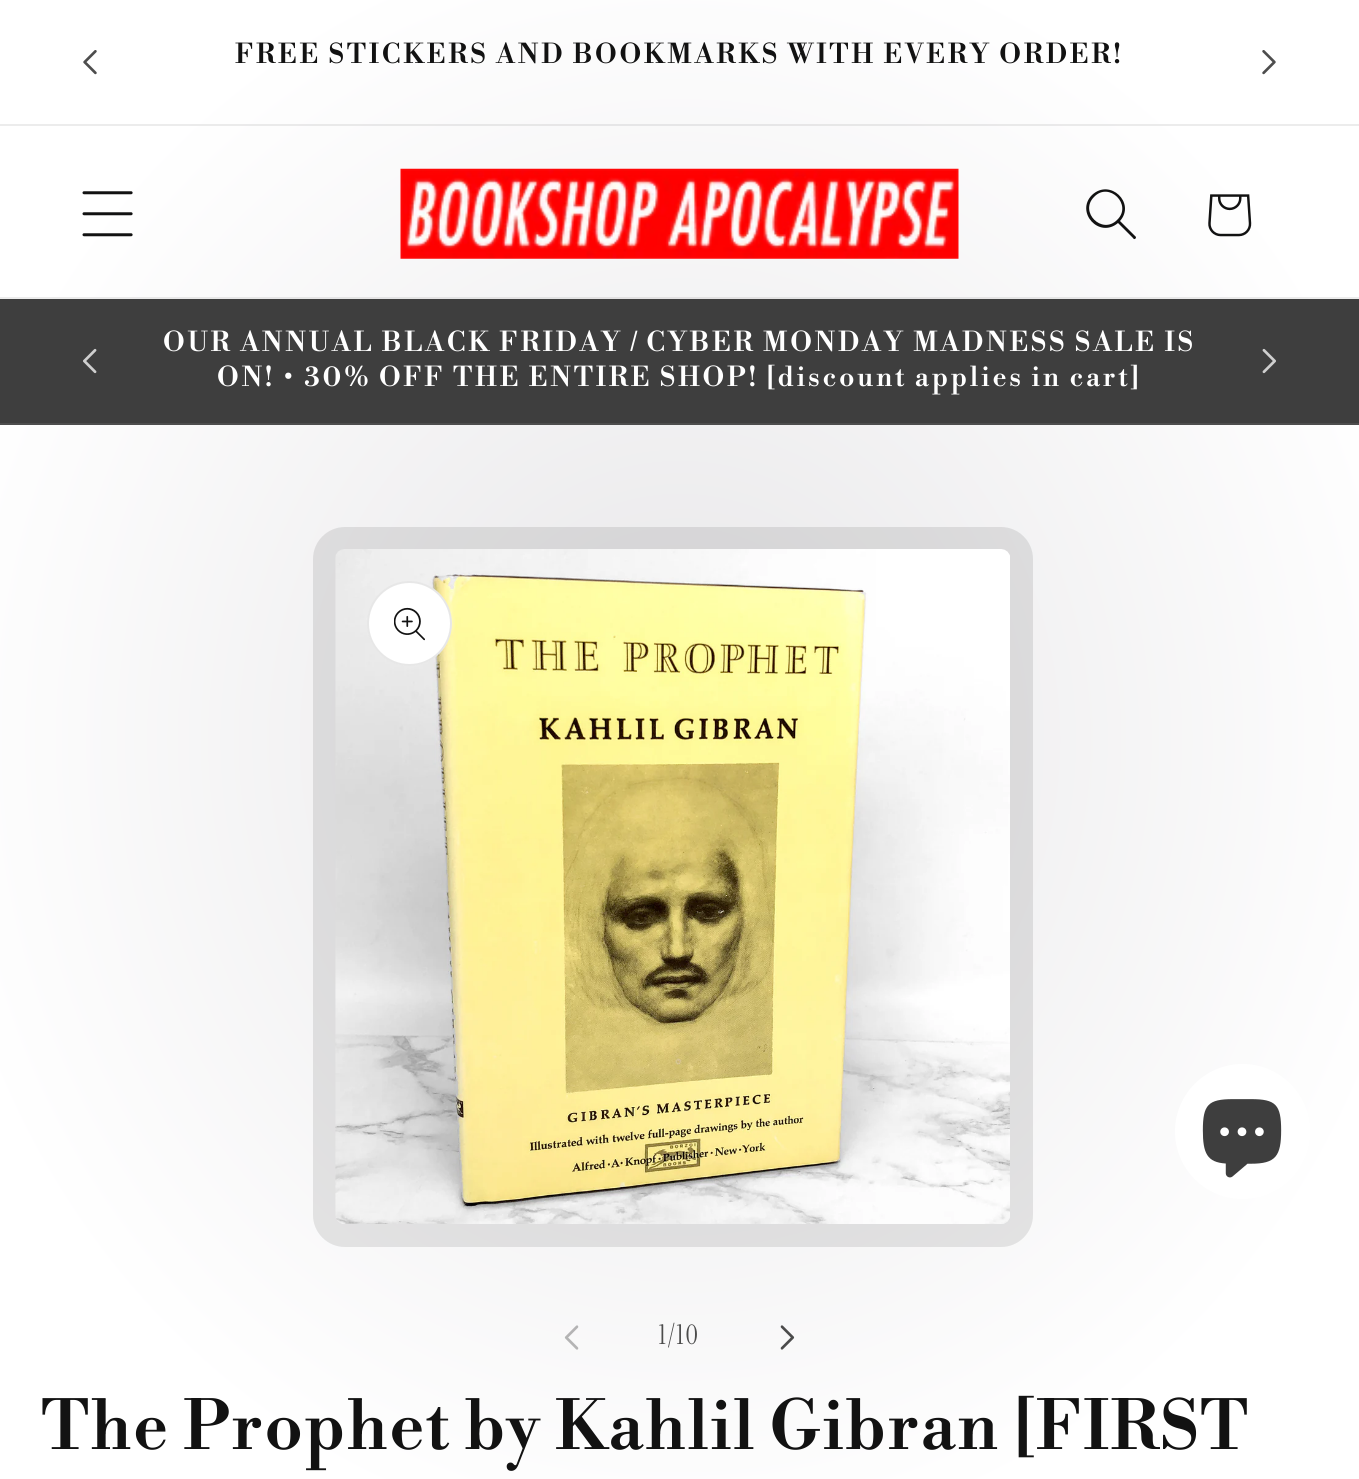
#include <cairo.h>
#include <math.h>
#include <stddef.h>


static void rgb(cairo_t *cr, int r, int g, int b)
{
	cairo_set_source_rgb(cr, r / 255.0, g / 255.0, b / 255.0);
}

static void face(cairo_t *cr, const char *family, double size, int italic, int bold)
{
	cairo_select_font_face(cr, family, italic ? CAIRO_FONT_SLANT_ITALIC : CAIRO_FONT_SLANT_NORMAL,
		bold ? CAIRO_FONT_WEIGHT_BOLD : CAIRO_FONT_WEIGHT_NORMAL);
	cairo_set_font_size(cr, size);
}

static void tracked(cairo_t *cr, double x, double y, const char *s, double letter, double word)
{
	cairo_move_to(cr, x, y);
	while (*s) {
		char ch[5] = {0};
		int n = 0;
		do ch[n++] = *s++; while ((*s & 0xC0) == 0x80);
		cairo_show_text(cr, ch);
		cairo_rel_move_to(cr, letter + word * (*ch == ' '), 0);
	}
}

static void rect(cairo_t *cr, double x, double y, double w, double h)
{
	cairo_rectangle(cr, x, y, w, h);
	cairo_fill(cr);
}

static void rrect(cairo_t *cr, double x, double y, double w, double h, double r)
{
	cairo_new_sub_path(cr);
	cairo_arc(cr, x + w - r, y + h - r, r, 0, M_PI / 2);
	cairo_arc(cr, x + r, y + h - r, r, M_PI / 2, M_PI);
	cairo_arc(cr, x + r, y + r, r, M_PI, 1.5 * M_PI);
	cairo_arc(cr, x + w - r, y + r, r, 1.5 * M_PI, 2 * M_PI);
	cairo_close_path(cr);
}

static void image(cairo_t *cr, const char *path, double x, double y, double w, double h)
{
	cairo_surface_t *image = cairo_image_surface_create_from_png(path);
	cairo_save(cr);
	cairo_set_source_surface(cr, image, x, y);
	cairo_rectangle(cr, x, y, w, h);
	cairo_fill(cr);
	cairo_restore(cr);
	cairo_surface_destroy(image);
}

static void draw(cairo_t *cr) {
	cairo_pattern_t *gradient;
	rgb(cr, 255, 255, 255);
	cairo_paint(cr);
	gradient = cairo_pattern_create_radial(0, 0, 0, 0, 0, 1);
	cairo_pattern_set_matrix(gradient, &(cairo_matrix_t){1.0 / 961, 0, 0, 1.0 / 1047, -1.0 * 680 / 961, -1.0 * 740 / 1047});
	cairo_pattern_add_color_stop_rgba(gradient, 0, 0.906, 0.902, 0.91, 1);
	cairo_pattern_add_color_stop_rgba(gradient, 0.79, 1, 1, 1, 1);
	cairo_pattern_add_color_stop_rgba(gradient, 0.97, 1, 1, 1, 1);
	cairo_set_source(cr, gradient);
	cairo_pattern_destroy(gradient);
	rect(cr, 0, 0, 1359, 1479);
	gradient = cairo_pattern_create_radial(0, 0, 0, 0, 0, 1);
	cairo_pattern_set_matrix(gradient, &(cairo_matrix_t){1.0 / 961, 0, 0, 1.0 / 1047, -1.0 * 680 / 961, -1.0 * 740 / 1047});
	cairo_pattern_add_color_stop_rgba(gradient, 0, 0.839, 0.835, 0.843, 1);
	cairo_pattern_add_color_stop_rgba(gradient, 0.79, 0.925, 0.925, 0.925, 1);
	cairo_pattern_add_color_stop_rgba(gradient, 0.97, 0.925, 0.925, 0.925, 1);
	cairo_set_source(cr, gradient);
	cairo_pattern_destroy(gradient);
	rect(cr, 0, 124, 1359, 2);
	rect(cr, 0, 297, 1359, 2);
	image(cr, "image0.png", 83, 50, 14, 25);
	face(cr, "Libre Bodoni Medium", 27, 0, 0);
	rgb(cr, 18, 18, 18);
	tracked(cr, 235, 63, "FREE STICKERS AND BOOKMARKS WITH EVERY ORDER!", 2.7, 0);
	image(cr, "image1.png", 1262, 50, 14, 25);
	image(cr, "image2.png", 82, 191, 51, 46);
	image(cr, "image3.png", 400, 168, 559, 91);
	cairo_set_fill_rule(cr, CAIRO_FILL_RULE_EVEN_ODD);
	cairo_new_path(cr);
	cairo_move_to(cr, 1117, 220);
	cairo_curve_to(cr, 1102, 235, 1079, 212, 1094, 197);
	cairo_curve_to(cr, 1109, 181, 1133, 205, 1117, 220);
	cairo_move_to(cr, 1118, 223);
	cairo_curve_to(cr, 1099, 239, 1075, 212, 1092, 195);
	cairo_curve_to(cr, 1110, 178, 1136, 203, 1120, 221);
	cairo_line_to(cr, 1136, 237);
	cairo_curve_to(cr, 1136, 239, 1134, 240, 1133, 238);
	cairo_close_path(cr);
	cairo_fill(cr);
	image(cr, "image4.png", 1208, 194, 44, 43);
	rgb(cr, 62, 62, 62);
	rect(cr, 0, 299, 1359, 124);
	rgb(cr, 77, 77, 77);
	rect(cr, 0, 423, 1359, 2);
	image(cr, "image5.png", 83, 348, 14, 26);
	rgb(cr, 255, 255, 255);
	tracked(cr, 163, 351, "OUR ANNUAL BLACK FRIDAY / CYBER MONDAY MADNESS SALE IS", 2.7, 0);
	tracked(cr, 217, 386, "ON! • 30% OFF THE ENTIRE SHOP! [discount applies in cart]", 2.7, 0);
	image(cr, "image6.png", 1262, 348, 14, 26);
	cairo_arc(cr, 1242.5, 1131.5, 67.5, 0, 2 * M_PI);
	cairo_fill(cr);
	image(cr, "image7.png", 1202, 1099, 80, 79);
	rrect(cr, 324.5, 538.5, 697, 697, 20.5);
	cairo_set_source_rgba(cr, 0.071, 0.071, 0.071, 0.1);
	cairo_set_line_width(cr, 23);
	cairo_stroke(cr);
	image(cr, "image8.png", 335, 549, 675, 675);
	rgb(cr, 255, 255, 255);
	cairo_arc(cr, 409.5, 623.5, 42.5, 0, 2 * M_PI);
	cairo_fill(cr);
	cairo_arc(cr, 409.5, 623.5, 41.5, 0, 2 * M_PI);
	cairo_set_source_rgba(cr, 0.071, 0.071, 0.071, 0.1);
	cairo_set_line_width(cr, 2);
	cairo_stroke(cr);
	image(cr, "image9.png", 394, 607, 31, 34);
	image(cr, "image10.png", 564, 1325, 15, 25);
	face(cr, "Instrument Serif", 27, 0, 0);
	rgb(cr, 76, 76, 76);
	tracked(cr, 659, 1344, "1/10", 2, 0);
	image(cr, "image11.png", 780, 1325, 15, 25);
	face(cr, "Libre Bodoni Medium", 67.5, 0, 0);
	rgb(cr, 18, 18, 18);
	tracked(cr, 41, 1449, "The Prophet by Kahlil Gibran [FIRST", 1.35, 0);
}

int main(void) {
	cairo_surface_t *surface = cairo_image_surface_create(CAIRO_FORMAT_RGB24, 1359, 1479);
	cairo_t *cr = cairo_create(surface);
	cairo_font_options_t *options = cairo_font_options_create();
	cairo_font_options_set_hint_metrics(options, CAIRO_HINT_METRICS_OFF);
	cairo_font_options_set_hint_style(options, CAIRO_HINT_STYLE_NONE);
	cairo_set_font_options(cr, options);
	cairo_set_miter_limit(cr, 4);
	draw(cr);
	cairo_surface_write_to_png(surface, "render.png");
	cairo_font_options_destroy(options);
	cairo_destroy(cr);
	cairo_surface_destroy(surface);
	return 0;
}
